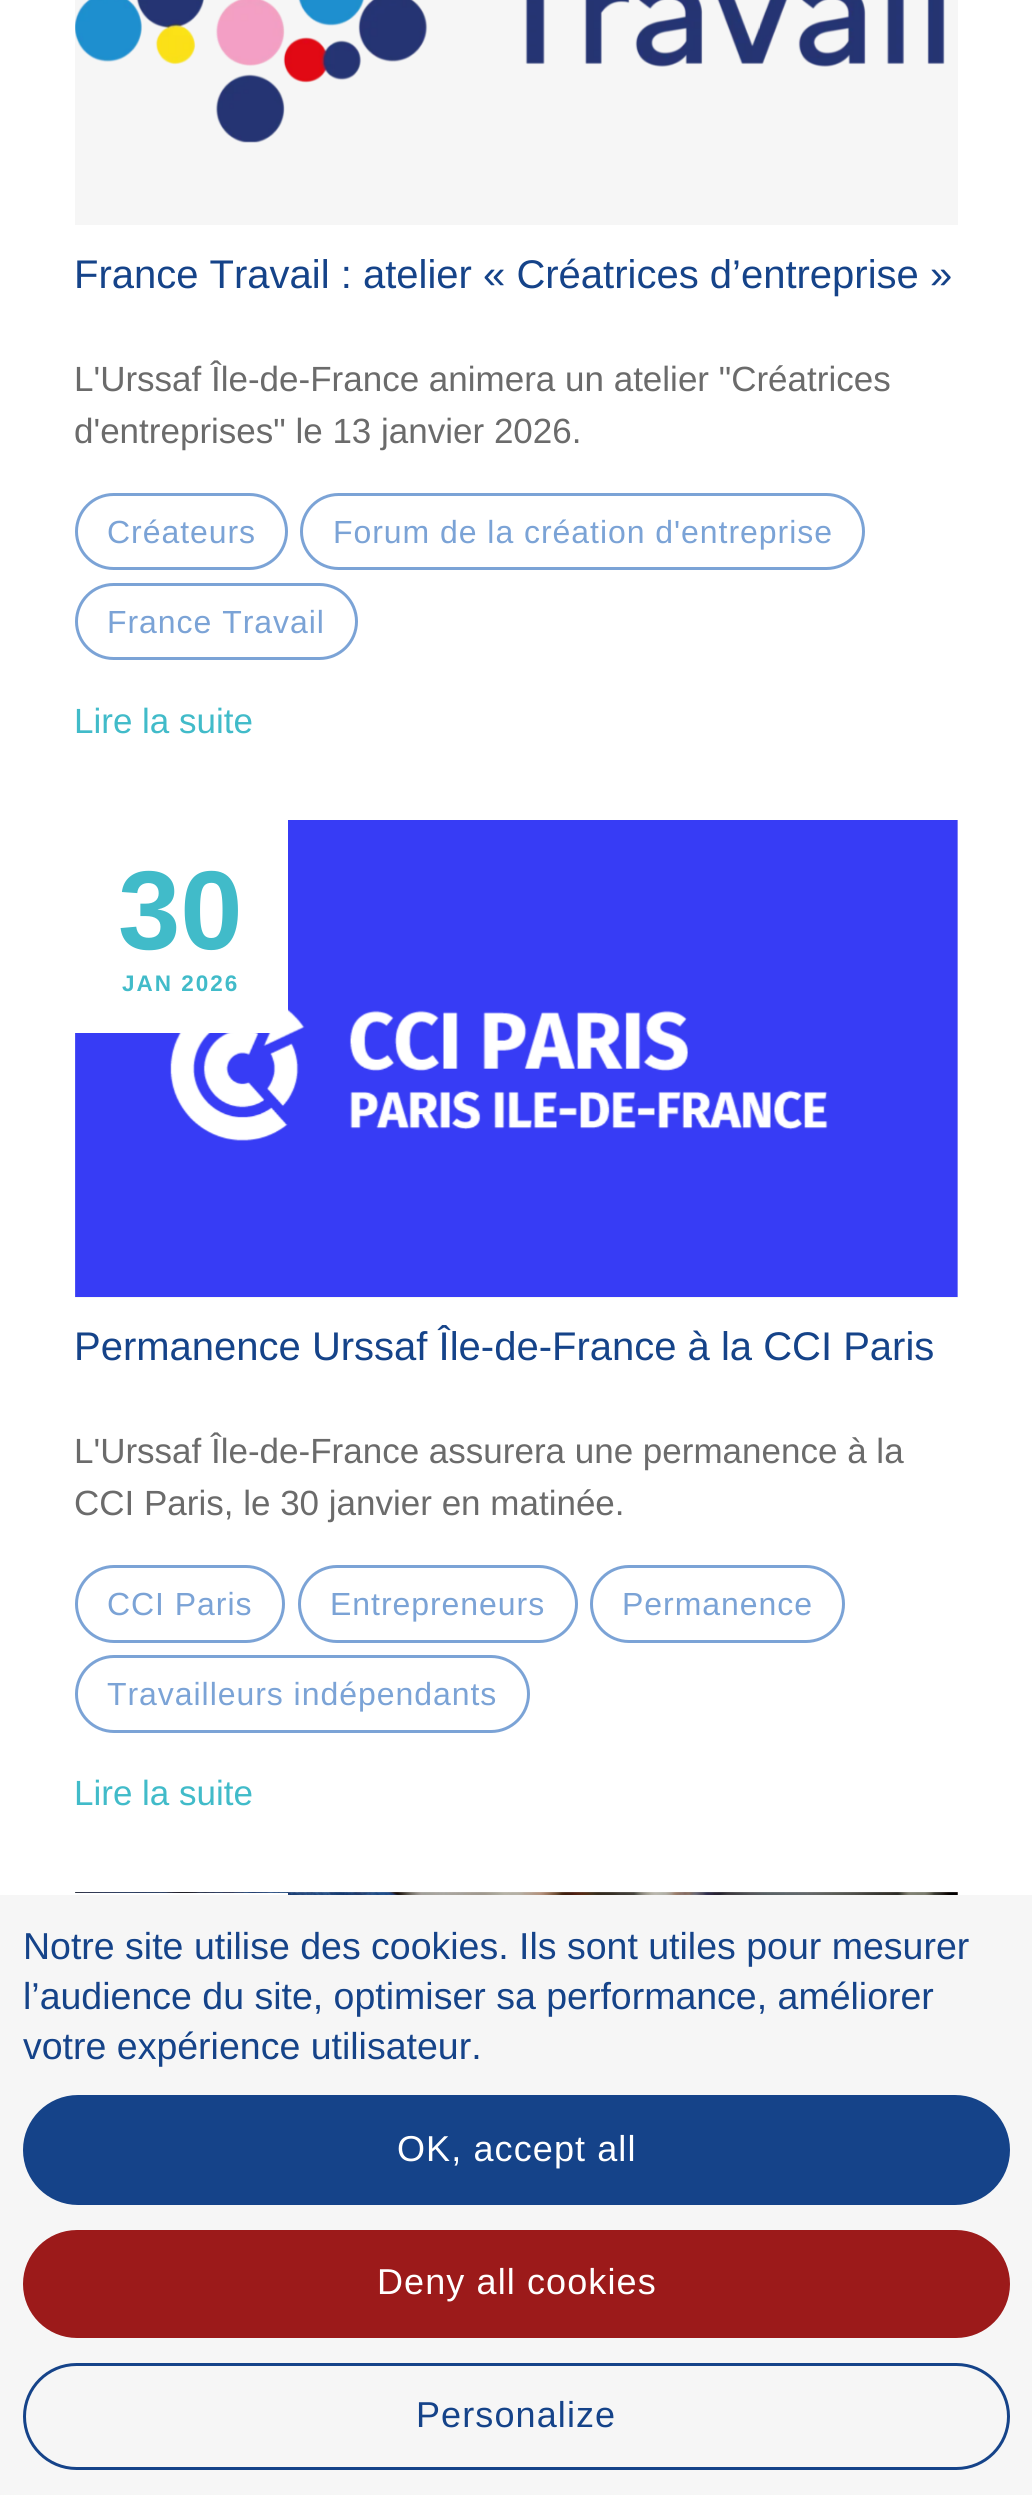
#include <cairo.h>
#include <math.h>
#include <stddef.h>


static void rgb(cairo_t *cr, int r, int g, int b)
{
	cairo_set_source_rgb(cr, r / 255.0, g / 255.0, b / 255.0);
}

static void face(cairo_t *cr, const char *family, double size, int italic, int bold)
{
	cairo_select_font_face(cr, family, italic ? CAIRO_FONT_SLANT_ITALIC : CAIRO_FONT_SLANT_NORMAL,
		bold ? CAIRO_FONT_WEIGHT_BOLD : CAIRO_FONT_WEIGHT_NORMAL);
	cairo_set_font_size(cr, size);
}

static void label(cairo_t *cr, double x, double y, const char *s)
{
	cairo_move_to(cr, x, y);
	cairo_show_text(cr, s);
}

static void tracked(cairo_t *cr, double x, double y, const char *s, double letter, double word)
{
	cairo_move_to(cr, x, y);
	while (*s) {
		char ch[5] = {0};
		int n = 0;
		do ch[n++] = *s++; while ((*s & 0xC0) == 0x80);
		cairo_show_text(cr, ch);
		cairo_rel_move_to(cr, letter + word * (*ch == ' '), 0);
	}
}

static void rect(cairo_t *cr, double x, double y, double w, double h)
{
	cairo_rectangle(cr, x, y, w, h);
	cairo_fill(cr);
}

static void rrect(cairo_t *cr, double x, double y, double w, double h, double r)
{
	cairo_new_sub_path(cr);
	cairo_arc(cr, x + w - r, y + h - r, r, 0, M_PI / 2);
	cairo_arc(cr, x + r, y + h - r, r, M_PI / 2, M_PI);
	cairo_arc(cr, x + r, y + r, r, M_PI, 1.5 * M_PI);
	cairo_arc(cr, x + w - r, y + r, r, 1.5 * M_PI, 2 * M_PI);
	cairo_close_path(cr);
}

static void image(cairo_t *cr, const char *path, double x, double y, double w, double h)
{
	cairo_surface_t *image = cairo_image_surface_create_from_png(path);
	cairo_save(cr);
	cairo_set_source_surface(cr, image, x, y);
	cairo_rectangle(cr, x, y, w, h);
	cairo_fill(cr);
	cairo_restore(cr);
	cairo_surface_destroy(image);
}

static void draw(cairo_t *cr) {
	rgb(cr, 255, 255, 255);
	cairo_paint(cr);
	rgb(cr, 246, 246, 246);
	rect(cr, 75, 0, 883, 225);
	image(cr, "image0.png", 75, 0, 870, 143);
	face(cr, "Liberation Sans", 40, 0, 0);
	rgb(cr, 21, 67, 137);
	label(cr, 74, 288, "France Travail : atelier « Créatrices d’entreprise »");
	face(cr, "Liberation Sans", 35, 0, 0);
	rgb(cr, 107, 107, 107);
	label(cr, 74, 391, "L'Urssaf Île-de-France animera un atelier \"Créatrices");
	label(cr, 74, 443, "d'entreprises\" le 13 janvier 2026.");
	rrect(cr, 76.5, 494.5, 210, 74, 37);
	rgb(cr, 123, 163, 214);
	cairo_set_line_width(cr, 3);
	cairo_stroke(cr);
	face(cr, "Liberation Sans", 32, 0, 0);
	tracked(cr, 107, 543, "Créateurs", 0.95, 0);
	rrect(cr, 301.5, 494.5, 562, 74, 37);
	cairo_stroke(cr);
	tracked(cr, 333, 543, "Forum de la création d'entreprise", 0.95, 0);
	rrect(cr, 76.5, 584.5, 280, 74, 37);
	cairo_stroke(cr);
	tracked(cr, 107, 633, "France Travail", 0.95, 0);
	face(cr, "Liberation Sans", 35, 0, 0);
	rgb(cr, 65, 187, 201);
	label(cr, 74, 733, "Lire la suite");
	rgb(cr, 246, 246, 246);
	rect(cr, 75, 820, 883, 478);
	image(cr, "image1.png", 75, 820, 883, 477);
	rgb(cr, 255, 255, 255);
	rect(cr, 75, 820, 213, 213);
	face(cr, "Liberation Sans", 112, 0, 1);
	rgb(cr, 65, 187, 201);
	label(cr, 118, 949, "30");
	face(cr, "Liberation Sans", 22.5, 0, 1);
	tracked(cr, 122, 991, "JAN 2026", 2, 0);
	face(cr, "Liberation Sans", 40, 0, 0);
	rgb(cr, 21, 67, 137);
	label(cr, 74, 1360, "Permanence Urssaf Île-de-France à la CCI Paris");
	face(cr, "Liberation Sans", 35, 0, 0);
	rgb(cr, 107, 107, 107);
	label(cr, 74, 1463, "L'Urssaf Île-de-France assurera une permanence à la");
	label(cr, 74, 1515, "CCI Paris, le 30 janvier en matinée.");
	rrect(cr, 76.5, 1566.5, 207, 75, 37.5);
	rgb(cr, 123, 163, 214);
	cairo_stroke(cr);
	face(cr, "Liberation Sans", 32, 0, 0);
	tracked(cr, 107, 1615, "CCI Paris", 0.95, 0);
	rrect(cr, 299.5, 1566.5, 277, 75, 37.5);
	cairo_stroke(cr);
	tracked(cr, 330, 1615, "Entrepreneurs", 0.95, 0);
	rrect(cr, 591.5, 1566.5, 252, 75, 37.5);
	cairo_stroke(cr);
	tracked(cr, 622, 1615, "Permanence", 0.95, 0);
	rrect(cr, 76.5, 1656.5, 452, 75, 37.5);
	cairo_stroke(cr);
	tracked(cr, 107, 1705, "Travailleurs indépendants", 0.95, 0);
	face(cr, "Liberation Sans", 35, 0, 0);
	rgb(cr, 65, 187, 201);
	label(cr, 74, 1805, "Lire la suite");
	image(cr, "image2.png", 75, 1892, 883, 3);
	rgb(cr, 255, 255, 255);
	rect(cr, 75, 1893, 213, 2);
	rgb(cr, 246, 246, 246);
	rect(cr, 0, 1895, 1032, 600);
	face(cr, "Liberation Sans", 37.5, 0, 0);
	rgb(cr, 21, 67, 137);
	label(cr, 23, 1959, "Notre site utilise des cookies. Ils sont utiles pour mesurer");
	label(cr, 23, 2009, "l’audience du site, optimiser sa performance, améliorer");
	label(cr, 23, 2059, "votre expérience utilisateur.");
	rrect(cr, 24.5, 2096.5, 984, 107, 53.5);
	cairo_fill_preserve(cr);
	cairo_stroke(cr);
	face(cr, "Liberation Sans", 36, 0, 0);
	rgb(cr, 255, 255, 255);
	tracked(cr, 397, 2161, "OK, accept all", 1.1, 0);
	rgb(cr, 156, 26, 26);
	rrect(cr, 24.5, 2231.5, 984, 105, 52.5);
	cairo_fill_preserve(cr);
	cairo_stroke(cr);
	rgb(cr, 255, 255, 255);
	tracked(cr, 377, 2294, "Deny all cookies", 1.1, 0);
	rrect(cr, 24.5, 2364.5, 984, 104, 52);
	rgb(cr, 21, 67, 137);
	cairo_stroke(cr);
	tracked(cr, 416, 2427, "Personalize", 1.1, 0);
}

int main(void) {
	cairo_surface_t *surface = cairo_image_surface_create(CAIRO_FORMAT_RGB24, 1032, 2495);
	cairo_t *cr = cairo_create(surface);
	cairo_font_options_t *options = cairo_font_options_create();
	cairo_font_options_set_hint_metrics(options, CAIRO_HINT_METRICS_OFF);
	cairo_font_options_set_hint_style(options, CAIRO_HINT_STYLE_NONE);
	cairo_set_font_options(cr, options);
	cairo_set_miter_limit(cr, 4);
	draw(cr);
	cairo_surface_write_to_png(surface, "render.png");
	cairo_font_options_destroy(options);
	cairo_destroy(cr);
	cairo_surface_destroy(surface);
	return 0;
}
